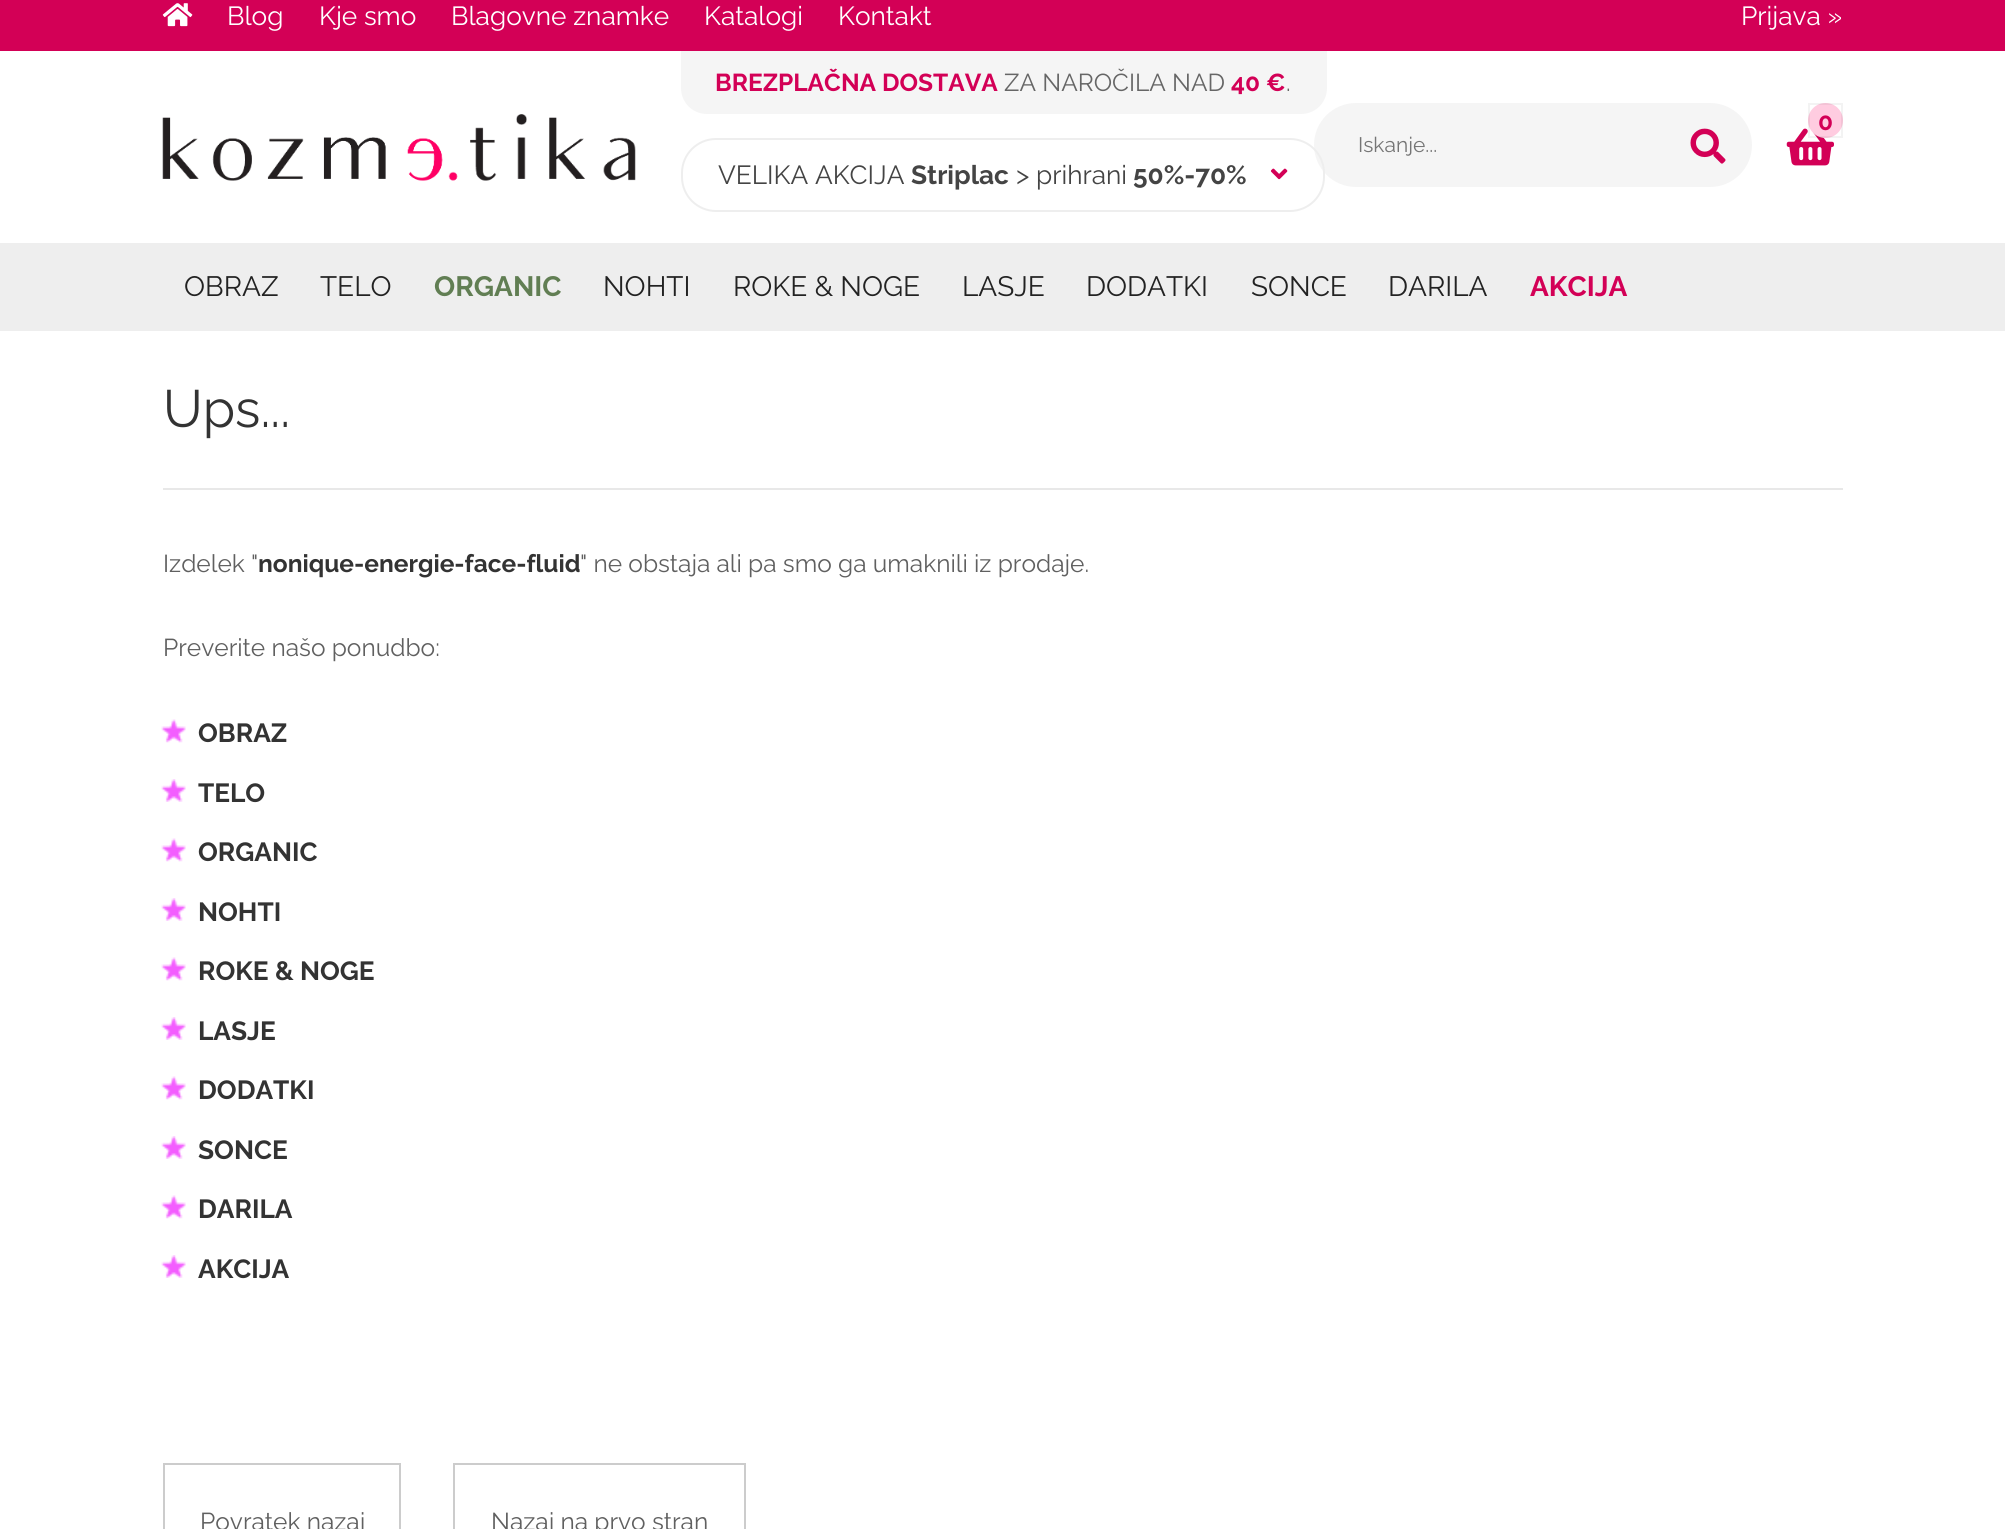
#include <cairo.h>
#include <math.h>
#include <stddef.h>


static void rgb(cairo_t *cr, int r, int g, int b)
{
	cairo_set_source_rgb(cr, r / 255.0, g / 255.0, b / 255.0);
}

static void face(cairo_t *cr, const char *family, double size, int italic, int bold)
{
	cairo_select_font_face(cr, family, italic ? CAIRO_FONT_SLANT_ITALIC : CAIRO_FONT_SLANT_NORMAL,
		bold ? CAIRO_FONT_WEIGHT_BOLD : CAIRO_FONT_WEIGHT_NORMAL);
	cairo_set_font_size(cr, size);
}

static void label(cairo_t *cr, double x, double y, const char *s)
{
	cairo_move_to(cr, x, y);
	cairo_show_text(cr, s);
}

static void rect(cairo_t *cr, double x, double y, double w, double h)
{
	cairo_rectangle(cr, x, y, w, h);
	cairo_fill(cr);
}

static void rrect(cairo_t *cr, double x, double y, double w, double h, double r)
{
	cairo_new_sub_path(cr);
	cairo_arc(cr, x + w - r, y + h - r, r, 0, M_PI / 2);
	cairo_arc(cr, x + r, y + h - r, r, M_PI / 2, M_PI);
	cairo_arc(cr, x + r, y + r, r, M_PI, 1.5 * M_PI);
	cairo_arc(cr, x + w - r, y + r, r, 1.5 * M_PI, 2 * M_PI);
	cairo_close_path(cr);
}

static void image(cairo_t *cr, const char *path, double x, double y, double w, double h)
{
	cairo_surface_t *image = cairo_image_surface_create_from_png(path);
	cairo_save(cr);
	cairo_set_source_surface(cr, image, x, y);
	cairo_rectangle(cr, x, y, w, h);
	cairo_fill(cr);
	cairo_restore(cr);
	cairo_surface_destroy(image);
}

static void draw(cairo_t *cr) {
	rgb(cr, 255, 255, 255);
	cairo_paint(cr);
	rgb(cr, 211, 0, 86);
	rect(cr, 0, 0, 2005, 51);
	image(cr, "image0.png", 162, 3, 31, 24);
	face(cr, "Raleway", 26.25, 0, 0);
	rgb(cr, 255, 255, 255);
	label(cr, 227, 25, "Blog");
	label(cr, 319, 25, "Kje smo");
	label(cr, 451, 25, "Blagovne znamke");
	label(cr, 704, 25, "Katalogi");
	label(cr, 838, 25, "Kontakt");
	label(cr, 1741, 25, "Prijava »");
	rgb(cr, 245, 245, 245);
	cairo_new_path(cr);
	cairo_move_to(cr, 681, 51);
	cairo_line_to(cr, 1327, 51);
	cairo_line_to(cr, 1327, 88);
	cairo_curve_to(cr, 1327, 102.5, 1315.5, 114, 1301, 114);
	cairo_line_to(cr, 707, 114);
	cairo_curve_to(cr, 692.5, 114, 681, 102.5, 681, 88);
	cairo_close_path(cr);
	cairo_fill(cr);
	face(cr, "Raleway", 24.5, 0, 1);
	rgb(cr, 211, 0, 86);
	label(cr, 715, 91, "BREZPLAČNA DOSTAVA");
	face(cr, "Raleway", 24.5, 0, 0);
	rgb(cr, 102, 102, 102);
	label(cr, 1004, 91, "ZA NAROČILA NAD");
	face(cr, "Raleway", 24.5, 0, 1);
	rgb(cr, 211, 0, 86);
	label(cr, 1231, 91, "40 €");
	face(cr, "Raleway", 24.5, 0, 0);
	rgb(cr, 102, 102, 102);
	label(cr, 1286, 91, ".");
	image(cr, "image1.png", 162, 114, 474, 67);
	image(cr, "image2.png", 1786, 128, 48, 38);
	rgb(cr, 255, 204, 224);
	cairo_arc(cr, 1825.5, 120.5, 17.5, 0, 2 * M_PI);
	cairo_fill(cr);
	cairo_rectangle(cr, 1809, 104, 33, 33);
	cairo_set_source_rgba(cr, 0, 0, 0, 0.05);
	cairo_stroke(cr);
	face(cr, "Raleway", 24.5, 0, 1);
	rgb(cr, 211, 0, 86);
	label(cr, 1818, 130, "0");
	rgb(cr, 245, 245, 245);
	rrect(cr, 1314, 103, 438, 84, 42);
	cairo_fill(cr);
	face(cr, "Raleway", 21, 0, 0);
	rgb(cr, 117, 117, 117);
	label(cr, 1358, 152, "Iskanje...");
	image(cr, "image3.png", 1690, 128, 36, 36);
	rrect(cr, 682, 139, 642, 72, 34);
	rgb(cr, 238, 238, 238);
	cairo_stroke(cr);
	face(cr, "Raleway", 26.25, 0, 0);
	rgb(cr, 68, 68, 68);
	label(cr, 718, 184, "VELIKA AKCIJA");
	face(cr, "Raleway", 26.25, 0, 1);
	label(cr, 911, 184, "Striplac");
	face(cr, "Raleway", 26.25, 0, 0);
	label(cr, 1016, 184, "> prihrani");
	face(cr, "Raleway", 26.25, 0, 1);
	label(cr, 1133, 184, "50%-70%");
	image(cr, "image4.png", 1270, 168, 18, 12);
	rgb(cr, 238, 238, 238);
	rect(cr, 0, 243, 2005, 88);
	face(cr, "Raleway", 28, 0, 0);
	rgb(cr, 34, 34, 34);
	label(cr, 184, 296, "OBRAZ");
	label(cr, 320, 296, "TELO");
	face(cr, "Raleway", 28, 0, 1);
	rgb(cr, 97, 126, 83);
	label(cr, 434, 296, "ORGANIC");
	face(cr, "Raleway", 28, 0, 0);
	rgb(cr, 34, 34, 34);
	label(cr, 603, 296, "NOHTI");
	label(cr, 733, 296, "ROKE & NOGE");
	label(cr, 962, 296, "LASJE");
	label(cr, 1086, 296, "DODATKI");
	label(cr, 1251, 296, "SONCE");
	label(cr, 1388, 296, "DARILA");
	face(cr, "Raleway", 28, 0, 1);
	rgb(cr, 211, 0, 86);
	label(cr, 1530, 296, "AKCIJA");
	rgb(cr, 232, 232, 232);
	rect(cr, 163, 488, 1680, 2);
	face(cr, "Raleway", 52.5, 0, 0);
	rgb(cr, 51, 51, 51);
	label(cr, 163, 427, "Ups...");
	face(cr, "Raleway", 24.5, 0, 0);
	rgb(cr, 96, 96, 96);
	label(cr, 163, 572, "Izdelek \"");
	face(cr, "Raleway", 24.5, 0, 1);
	rgb(cr, 51, 51, 51);
	label(cr, 258, 572, "nonique-energie-face-fluid");
	face(cr, "Raleway", 24.5, 0, 0);
	rgb(cr, 96, 96, 96);
	label(cr, 580, 572, "\" ne obstaja ali pa smo ga umaknili iz prodaje.");
	label(cr, 163, 656, "Preverite našo ponudbo:");
	image(cr, "image5.png", 161, 719, 25, 24);
	face(cr, "Raleway", 26.25, 0, 1);
	rgb(cr, 51, 51, 51);
	label(cr, 198, 742, "OBRAZ");
	image(cr, "image6.png", 161, 779, 25, 23);
	label(cr, 198, 802, "TELO");
	image(cr, "image5.png", 161, 838, 25, 24);
	label(cr, 198, 861, "ORGANIC");
	image(cr, "image6.png", 161, 898, 25, 23);
	label(cr, 198, 921, "NOHTI");
	image(cr, "image5.png", 161, 957, 25, 24);
	label(cr, 198, 980, "ROKE & NOGE");
	image(cr, "image6.png", 161, 1017, 25, 23);
	label(cr, 198, 1040, "LASJE");
	image(cr, "image5.png", 161, 1076, 25, 24);
	label(cr, 198, 1099, "DODATKI");
	image(cr, "image6.png", 161, 1136, 25, 23);
	label(cr, 198, 1159, "SONCE");
	image(cr, "image5.png", 161, 1195, 25, 24);
	label(cr, 198, 1218, "DARILA");
	image(cr, "image6.png", 161, 1255, 25, 23);
	label(cr, 198, 1278, "AKCIJA");
	cairo_rectangle(cr, 164, 1464, 236, 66);
	rgb(cr, 204, 204, 204);
	cairo_stroke(cr);
	face(cr, "Raleway", 24.5, 0, 0);
	rgb(cr, 96, 96, 96);
	label(cr, 200, 1530, "Povratek nazaj");
	cairo_rectangle(cr, 454, 1464, 291, 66);
	rgb(cr, 204, 204, 204);
	cairo_stroke(cr);
	rgb(cr, 96, 96, 96);
	label(cr, 491, 1530, "Nazaj na prvo stran");
}

int main(void) {
	cairo_surface_t *surface = cairo_image_surface_create(CAIRO_FORMAT_RGB24, 2005, 1529);
	cairo_t *cr = cairo_create(surface);
	cairo_font_options_t *options = cairo_font_options_create();
	cairo_font_options_set_hint_metrics(options, CAIRO_HINT_METRICS_OFF);
	cairo_font_options_set_hint_style(options, CAIRO_HINT_STYLE_NONE);
	cairo_set_font_options(cr, options);
	cairo_set_miter_limit(cr, 4);
	draw(cr);
	cairo_surface_write_to_png(surface, "render.png");
	cairo_font_options_destroy(options);
	cairo_destroy(cr);
	cairo_surface_destroy(surface);
	return 0;
}
